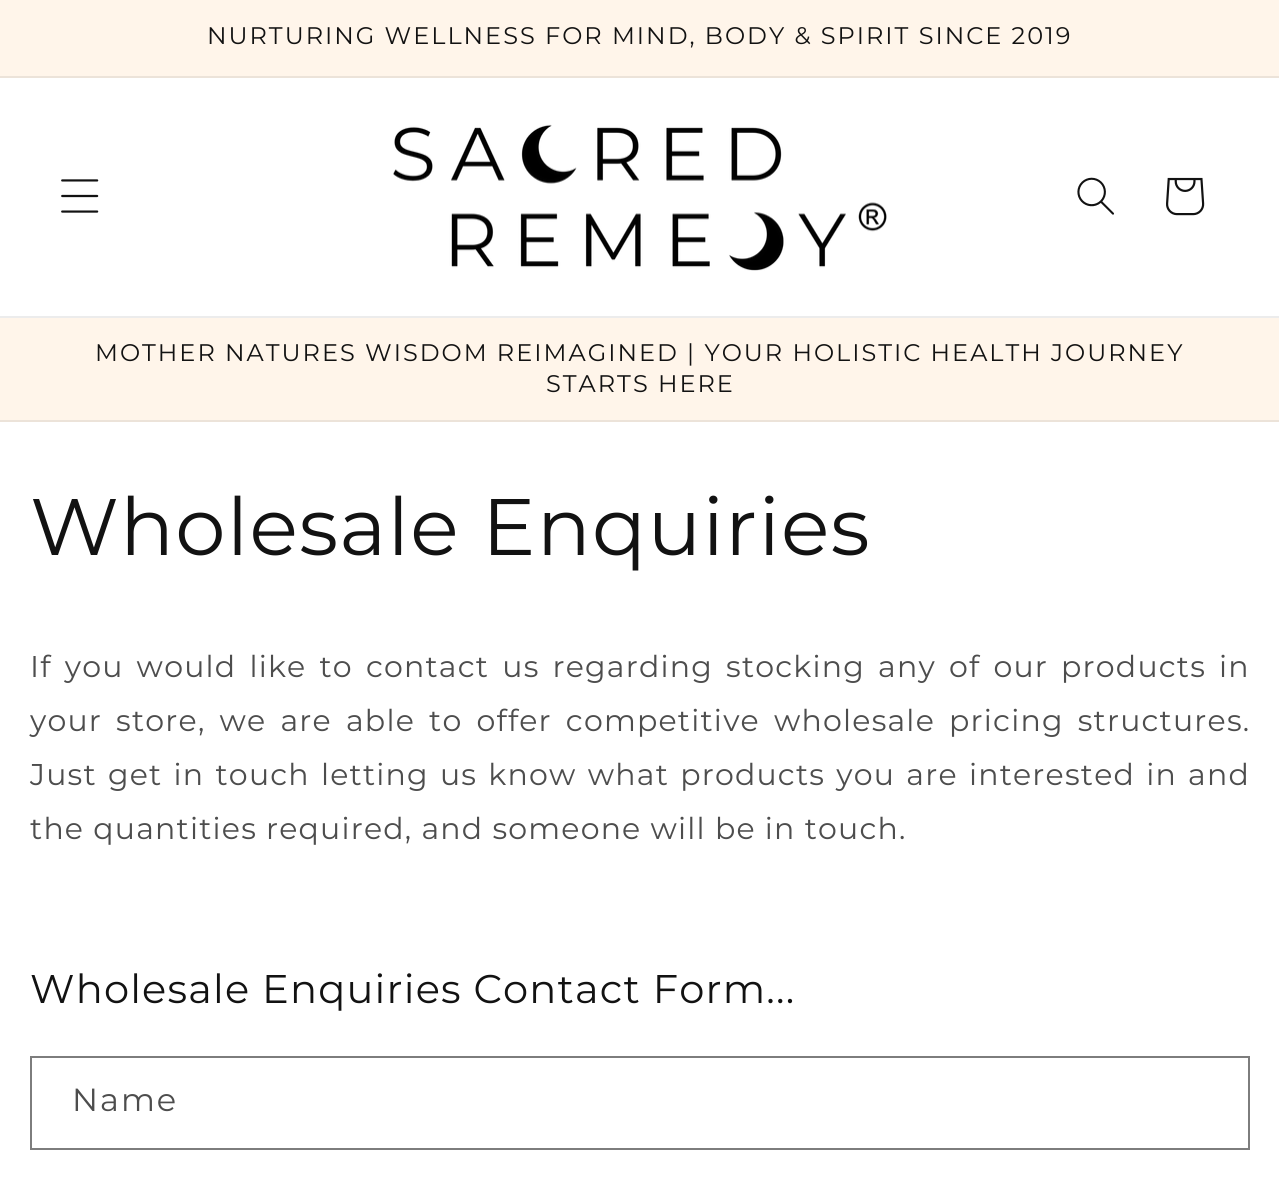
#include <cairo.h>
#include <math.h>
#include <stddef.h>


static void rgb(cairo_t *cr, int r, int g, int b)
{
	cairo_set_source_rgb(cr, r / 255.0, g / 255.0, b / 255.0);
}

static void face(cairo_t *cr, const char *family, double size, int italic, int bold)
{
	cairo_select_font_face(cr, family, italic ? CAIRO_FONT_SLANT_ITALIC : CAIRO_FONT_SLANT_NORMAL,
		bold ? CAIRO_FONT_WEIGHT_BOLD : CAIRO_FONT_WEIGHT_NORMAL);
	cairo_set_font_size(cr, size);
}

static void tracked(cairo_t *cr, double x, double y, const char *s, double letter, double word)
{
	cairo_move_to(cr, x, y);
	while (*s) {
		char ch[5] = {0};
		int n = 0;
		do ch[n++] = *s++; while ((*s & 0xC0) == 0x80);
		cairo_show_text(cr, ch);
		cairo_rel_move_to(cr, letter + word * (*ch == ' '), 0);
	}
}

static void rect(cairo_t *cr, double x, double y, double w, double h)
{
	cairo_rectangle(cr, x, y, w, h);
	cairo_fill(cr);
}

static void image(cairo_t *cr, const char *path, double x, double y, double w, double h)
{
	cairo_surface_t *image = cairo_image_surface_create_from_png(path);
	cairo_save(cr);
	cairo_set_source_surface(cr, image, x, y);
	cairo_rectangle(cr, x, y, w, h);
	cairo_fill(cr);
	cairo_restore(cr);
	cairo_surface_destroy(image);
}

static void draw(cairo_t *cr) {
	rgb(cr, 255, 255, 255);
	cairo_paint(cr);
	rgb(cr, 255, 245, 234);
	rect(cr, 0, 0, 1279, 76);
	rgb(cr, 236, 227, 217);
	rect(cr, 0, 76, 1279, 2);
	face(cr, "Montserrat", 24, 0, 0);
	rgb(cr, 18, 18, 18);
	tracked(cr, 207, 44, "NURTURING WELLNESS FOR MIND, BODY & SPIRIT SINCE 2019", 2, 0);
	rgb(cr, 236, 236, 236);
	rect(cr, 0, 316, 1279, 2);
	image(cr, "image0.png", 61, 179, 38, 34);
	image(cr, "image1.png", 393, 124, 494, 147);
	image(cr, "image2.png", 1077, 177, 37, 38);
	image(cr, "image3.png", 1166, 177, 39, 39);
	rgb(cr, 255, 245, 234);
	rect(cr, 0, 318, 1279, 102);
	rgb(cr, 236, 227, 217);
	rect(cr, 0, 420, 1279, 2);
	rgb(cr, 18, 18, 18);
	tracked(cr, 95, 361, "MOTHER NATURES WISDOM REIMAGINED | YOUR HOLISTIC HEALTH JOURNEY", 2, 0);
	tracked(cr, 546, 392, "STARTS HERE", 2, 0);
	face(cr, "Montserrat", 80, 0, 0);
	tracked(cr, 30, 555, "Wholesale Enquiries", 1.2, 0);
	face(cr, "Montserrat", 30, 0, 0);
	rgb(cr, 77, 77, 77);
	tracked(cr, 30, 677, "If you would like to contact us regarding stocking any of our products in", 1.2, 4);
	tracked(cr, 30, 731, "your store, we are able to offer competitive wholesale pricing structures.", 1.2, 5);
	tracked(cr, 30, 785, "Just get in touch letting us know what products you are interested in and", 1.2, 2.1);
	tracked(cr, 30, 839, "the quantities required, and someone will be in touch.", 1.2, 0);
	face(cr, "Montserrat", 40, 0, 0);
	rgb(cr, 18, 18, 18);
	tracked(cr, 30, 1003, "Wholesale Enquiries Contact Form...", 1.2, 0);
	cairo_rectangle(cr, 31, 1057, 1218, 92);
	rgb(cr, 125, 125, 125);
	cairo_stroke(cr);
	face(cr, "Montserrat", 32, 0, 0);
	rgb(cr, 77, 77, 77);
	tracked(cr, 72, 1111, "Name", 2, 0);
}

int main(void) {
	cairo_surface_t *surface = cairo_image_surface_create(CAIRO_FORMAT_RGB24, 1279, 1179);
	cairo_t *cr = cairo_create(surface);
	cairo_font_options_t *options = cairo_font_options_create();
	cairo_font_options_set_hint_metrics(options, CAIRO_HINT_METRICS_OFF);
	cairo_font_options_set_hint_style(options, CAIRO_HINT_STYLE_NONE);
	cairo_set_font_options(cr, options);
	cairo_set_miter_limit(cr, 4);
	draw(cr);
	cairo_surface_write_to_png(surface, "render.png");
	cairo_font_options_destroy(options);
	cairo_destroy(cr);
	cairo_surface_destroy(surface);
	return 0;
}
